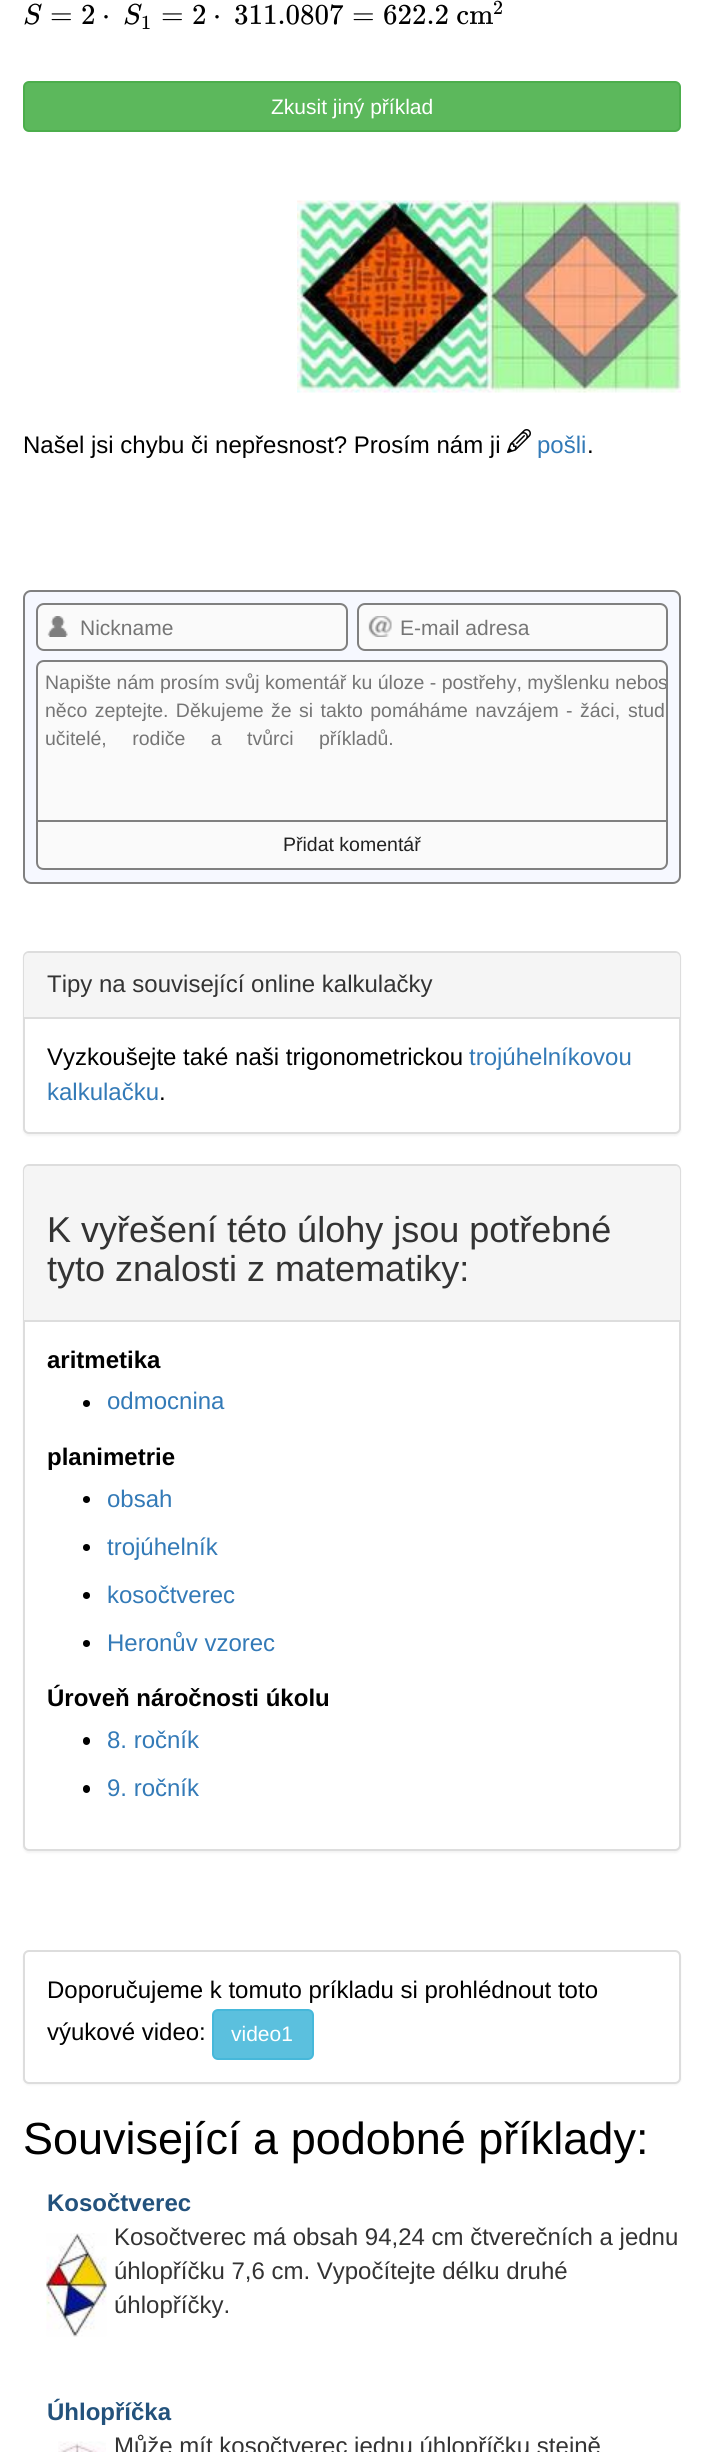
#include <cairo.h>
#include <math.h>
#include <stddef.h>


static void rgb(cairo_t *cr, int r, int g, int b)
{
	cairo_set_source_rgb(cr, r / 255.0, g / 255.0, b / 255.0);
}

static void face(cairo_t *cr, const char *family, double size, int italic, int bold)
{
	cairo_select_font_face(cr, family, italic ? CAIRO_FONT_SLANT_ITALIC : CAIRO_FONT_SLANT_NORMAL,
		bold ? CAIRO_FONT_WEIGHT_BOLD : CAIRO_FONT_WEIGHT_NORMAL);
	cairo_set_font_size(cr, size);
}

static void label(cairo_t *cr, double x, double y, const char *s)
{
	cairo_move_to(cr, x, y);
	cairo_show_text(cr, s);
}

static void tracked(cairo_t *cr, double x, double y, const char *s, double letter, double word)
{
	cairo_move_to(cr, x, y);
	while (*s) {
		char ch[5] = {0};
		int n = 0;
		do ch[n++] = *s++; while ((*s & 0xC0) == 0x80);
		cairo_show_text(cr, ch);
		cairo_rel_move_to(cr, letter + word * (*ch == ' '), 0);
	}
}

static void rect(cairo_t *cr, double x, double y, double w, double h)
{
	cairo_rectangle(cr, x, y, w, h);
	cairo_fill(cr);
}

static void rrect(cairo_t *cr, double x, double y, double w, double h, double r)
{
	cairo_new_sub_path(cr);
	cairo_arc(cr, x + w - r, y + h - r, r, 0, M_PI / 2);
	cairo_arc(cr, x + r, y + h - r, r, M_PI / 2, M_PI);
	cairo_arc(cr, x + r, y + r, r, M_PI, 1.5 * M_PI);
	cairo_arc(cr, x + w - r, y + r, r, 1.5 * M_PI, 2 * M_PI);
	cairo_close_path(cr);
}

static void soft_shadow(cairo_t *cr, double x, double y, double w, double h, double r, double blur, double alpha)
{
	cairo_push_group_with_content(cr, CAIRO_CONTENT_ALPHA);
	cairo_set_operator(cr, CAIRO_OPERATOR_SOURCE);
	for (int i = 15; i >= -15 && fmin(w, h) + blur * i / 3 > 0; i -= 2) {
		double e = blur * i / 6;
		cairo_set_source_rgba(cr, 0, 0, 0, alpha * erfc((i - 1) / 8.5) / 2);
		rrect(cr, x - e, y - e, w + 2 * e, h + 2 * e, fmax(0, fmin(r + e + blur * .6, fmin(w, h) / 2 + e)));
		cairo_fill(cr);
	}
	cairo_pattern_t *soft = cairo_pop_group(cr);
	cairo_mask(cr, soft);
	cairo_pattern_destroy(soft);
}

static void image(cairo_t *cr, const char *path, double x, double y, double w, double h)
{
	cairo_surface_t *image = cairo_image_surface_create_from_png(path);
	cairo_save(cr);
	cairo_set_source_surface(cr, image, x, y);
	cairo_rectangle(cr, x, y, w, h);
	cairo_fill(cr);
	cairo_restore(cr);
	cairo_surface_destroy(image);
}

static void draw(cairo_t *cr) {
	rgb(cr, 255, 255, 255);
	cairo_paint(cr);
	face(cr, "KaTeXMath", 29, 1, 0);
	rgb(cr, 0, 0, 0);
	label(cr, 23, 24, "S");
	face(cr, "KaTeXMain", 29, 0, 0);
	label(cr, 50, 24, "=");
	label(cr, 81, 24, "2");
	label(cr, 102, 24, "⋅");
	face(cr, "KaTeXMath", 29, 1, 0);
	label(cr, 123, 24, "S");
	face(cr, "KaTeXMain", 20, 0, 0);
	label(cr, 141, 29, "1");
	face(cr, "KaTeXMain", 29, 0, 0);
	label(cr, 161, 24, "=");
	label(cr, 192, 24, "2");
	label(cr, 213, 24, "⋅");
	label(cr, 234, 24, "311.0807");
	label(cr, 352, 24, "=");
	label(cr, 383, 24, "622.2 cm");
	face(cr, "KaTeXMain", 20, 0, 0);
	label(cr, 493, 14, "2");
	rgb(cr, 92, 184, 92);
	rrect(cr, 24, 82, 656, 49, 5);
	cairo_fill_preserve(cr);
	rgb(cr, 76, 174, 76);
	cairo_stroke(cr);
	face(cr, "Liberation Sans", 21, 0, 0);
	rgb(cr, 255, 255, 255);
	label(cr, 271, 114, "Zkusit jiný příklad");
	image(cr, "image0.png", 297, 200, 384, 193);
	face(cr, "Liberation Sans", 24, 0, 0);
	rgb(cr, 0, 0, 0);
	label(cr, 23, 453, "Našel jsi chybu či nepřesnost? Prosím nám ji");
	image(cr, "image1.png", 507, 429, 24, 24);
	rgb(cr, 51, 122, 183);
	label(cr, 537, 453, "pošli");
	rgb(cr, 0, 0, 0);
	label(cr, 587, 453, ".");
	rgb(cr, 246, 248, 255);
	rrect(cr, 24, 591, 656, 292, 7);
	cairo_fill_preserve(cr);
	rgb(cr, 128, 128, 128);
	cairo_stroke(cr);
	rgb(cr, 250, 250, 250);
	rrect(cr, 36, 603, 312, 48, 8);
	cairo_fill(cr);
	image(cr, "image2.png", 47, 616, 21, 21);
	rrect(cr, 37, 604, 310, 46, 7);
	rgb(cr, 128, 128, 128);
	cairo_stroke(cr);
	face(cr, "Liberation Sans", 21, 0, 0);
	rgb(cr, 117, 117, 117);
	label(cr, 80, 635, "Nickname");
	rgb(cr, 250, 250, 250);
	rrect(cr, 357, 603, 311, 48, 8);
	cairo_fill(cr);
	image(cr, "image3.png", 368, 616, 24, 21);
	rrect(cr, 358, 604, 309, 46, 7);
	rgb(cr, 128, 128, 128);
	cairo_stroke(cr);
	rgb(cr, 117, 117, 117);
	label(cr, 400, 635, "E-mail adresa");
	rgb(cr, 250, 250, 250);
	cairo_new_path(cr);
	cairo_move_to(cr, 44, 661);
	cairo_line_to(cr, 660, 661);
	cairo_curve_to(cr, 664, 661, 667, 664, 667, 668);
	cairo_line_to(cr, 667, 821);
	cairo_line_to(cr, 37, 821);
	cairo_line_to(cr, 37, 668);
	cairo_curve_to(cr, 37, 664, 40, 661, 44, 661);
	cairo_close_path(cr);
	cairo_fill_preserve(cr);
	rgb(cr, 128, 128, 128);
	cairo_stroke(cr);
	face(cr, "Liberation Sans", 19.5, 0, 0);
	rgb(cr, 117, 117, 117);
	label(cr, 45, 689, "Napište nám prosím svůj komentář ku úloze - postřehy, myšlenku nebo");
	cairo_save(cr);
	cairo_new_path(cr);
	cairo_move_to(cr, 44, 662);
	cairo_line_to(cr, 660, 662);
	cairo_curve_to(cr, 663.5, 662, 666, 664.5, 666, 668);
	cairo_line_to(cr, 666, 821);
	cairo_line_to(cr, 38, 821);
	cairo_line_to(cr, 38, 668);
	cairo_curve_to(cr, 38, 664.5, 40.5, 662, 44, 662);
	cairo_close_path(cr);
	cairo_clip(cr);
	label(cr, 658, 689, "s");
	cairo_restore(cr);
	tracked(cr, 45, 717, "něco zeptejte. Děkujeme že si takto pomáháme navzájem - žáci,", 0, 2);
	label(cr, 628, 717, "stud");
	tracked(cr, 45, 745, "učitelé, rodiče a tvůrci příkladů.", 0, 20);
	rgb(cr, 250, 250, 250);
	cairo_new_path(cr);
	cairo_move_to(cr, 36, 822);
	cairo_line_to(cr, 668, 822);
	cairo_line_to(cr, 668, 862);
	cairo_curve_to(cr, 668, 866.5, 664.5, 870, 660, 870);
	cairo_line_to(cr, 44, 870);
	cairo_curve_to(cr, 39.5, 870, 36, 866.5, 36, 862);
	cairo_close_path(cr);
	cairo_fill(cr);
	rgb(cr, 128, 128, 128);
	cairo_set_fill_rule(cr, CAIRO_FILL_RULE_EVEN_ODD);
	cairo_new_path(cr);
	cairo_move_to(cr, 36, 822);
	cairo_line_to(cr, 668, 822);
	cairo_line_to(cr, 668, 862);
	cairo_curve_to(cr, 668, 867, 664, 870, 660, 870);
	cairo_line_to(cr, 44, 870);
	cairo_curve_to(cr, 39, 870, 36, 867, 36, 862);
	cairo_close_path(cr);
	cairo_move_to(cr, 38, 822);
	cairo_line_to(cr, 666, 822);
	cairo_line_to(cr, 666, 862);
	cairo_curve_to(cr, 666, 866, 663, 868, 660, 868);
	cairo_line_to(cr, 44, 868);
	cairo_curve_to(cr, 40, 868, 38, 866, 38, 862);
	cairo_close_path(cr);
	cairo_fill(cr);
	rgb(cr, 34, 34, 34);
	label(cr, 283, 851, "Přidat komentář");
	rgb(cr, 0, 0, 0);
	soft_shadow(cr, 23, 953, 658, 183, 6, 1, 0.05);
	rgb(cr, 255, 255, 255);
	rrect(cr, 24, 952, 656, 181, 5);
	cairo_fill_preserve(cr);
	rgb(cr, 221, 221, 221);
	cairo_stroke(cr);
	rgb(cr, 245, 245, 245);
	cairo_new_path(cr);
	cairo_move_to(cr, 29, 953);
	cairo_line_to(cr, 675, 953);
	cairo_curve_to(cr, 678, 953, 680, 955, 680, 958);
	cairo_line_to(cr, 680, 1019);
	cairo_line_to(cr, 24, 1019);
	cairo_line_to(cr, 24, 958);
	cairo_curve_to(cr, 24, 955, 26, 953, 29, 953);
	cairo_close_path(cr);
	cairo_fill(cr);
	rgb(cr, 221, 221, 221);
	rect(cr, 24, 1017, 656, 2);
	face(cr, "Liberation Sans", 24, 0, 0);
	rgb(cr, 51, 51, 51);
	label(cr, 47, 992, "Tipy na související online kalkulačky");
	rgb(cr, 0, 0, 0);
	label(cr, 47, 1065, "Vyzkoušejte také naši trigonometrickou");
	rgb(cr, 51, 122, 183);
	label(cr, 469, 1065, "trojúhelníkovou");
	label(cr, 47, 1100, "kalkulačku");
	rgb(cr, 0, 0, 0);
	label(cr, 159, 1100, ".");
	rgb(cr, 0, 0, 0);
	soft_shadow(cr, 23, 1166, 658, 687, 6, 1, 0.05);
	rgb(cr, 255, 255, 255);
	rrect(cr, 24, 1165, 656, 685, 5);
	cairo_fill_preserve(cr);
	rgb(cr, 221, 221, 221);
	cairo_stroke(cr);
	rgb(cr, 245, 245, 245);
	cairo_new_path(cr);
	cairo_move_to(cr, 29, 1166);
	cairo_line_to(cr, 675, 1166);
	cairo_curve_to(cr, 678, 1166, 680, 1168, 680, 1171);
	cairo_line_to(cr, 680, 1322);
	cairo_line_to(cr, 24, 1322);
	cairo_line_to(cr, 24, 1171);
	cairo_curve_to(cr, 24, 1168, 26, 1166, 29, 1166);
	cairo_close_path(cr);
	cairo_fill(cr);
	rgb(cr, 221, 221, 221);
	rect(cr, 24, 1320, 656, 2);
	face(cr, "Liberation Sans", 36, 0, 0);
	rgb(cr, 51, 51, 51);
	label(cr, 47, 1242, "K vyřešení této úlohy jsou potřebné");
	label(cr, 47, 1281, "tyto znalosti z matematiky:");
	face(cr, "Liberation Sans", 24, 0, 1);
	rgb(cr, 0, 0, 0);
	label(cr, 47, 1368, "aritmetika");
	cairo_new_path(cr);
	cairo_arc(cr, 86.5, 1403.5, 3.5, 0, 2 * M_PI);
	cairo_fill(cr);
	face(cr, "Liberation Sans", 24, 0, 0);
	rgb(cr, 51, 122, 183);
	label(cr, 107, 1409, "odmocnina");
	face(cr, "Liberation Sans", 24, 0, 1);
	rgb(cr, 0, 0, 0);
	label(cr, 47, 1465, "planimetrie");
	cairo_new_path(cr);
	cairo_arc(cr, 86.5, 1499.5, 3.5, 0, 2 * M_PI);
	cairo_fill(cr);
	face(cr, "Liberation Sans", 24, 0, 0);
	rgb(cr, 51, 122, 183);
	label(cr, 107, 1507, "obsah");
	rgb(cr, 0, 0, 0);
	cairo_new_path(cr);
	cairo_arc(cr, 86.5, 1547.5, 3.5, 0, 2 * M_PI);
	cairo_fill(cr);
	rgb(cr, 51, 122, 183);
	label(cr, 107, 1555, "trojúhelník");
	rgb(cr, 0, 0, 0);
	cairo_new_path(cr);
	cairo_arc(cr, 86.5, 1595.5, 3.5, 0, 2 * M_PI);
	cairo_fill(cr);
	rgb(cr, 51, 122, 183);
	label(cr, 107, 1603, "kosočtverec");
	rgb(cr, 0, 0, 0);
	cairo_new_path(cr);
	cairo_arc(cr, 86.5, 1643.5, 3.5, 0, 2 * M_PI);
	cairo_fill(cr);
	rgb(cr, 51, 122, 183);
	label(cr, 107, 1651, "Heronův vzorec");
	face(cr, "Liberation Sans", 24, 0, 1);
	rgb(cr, 0, 0, 0);
	label(cr, 47, 1706, "Úroveň náročnosti úkolu");
	rrect(cr, 83, 1737, 7, 8, 3.5);
	cairo_fill(cr);
	face(cr, "Liberation Sans", 24, 0, 0);
	rgb(cr, 51, 122, 183);
	label(cr, 107, 1748, "8. ročník");
	rgb(cr, 0, 0, 0);
	rrect(cr, 83, 1785, 7, 8, 3.5);
	cairo_fill(cr);
	rgb(cr, 51, 122, 183);
	label(cr, 107, 1796, "9. ročník");
	rgb(cr, 0, 0, 0);
	soft_shadow(cr, 23, 1952, 658, 133, 6, 1, 0.05);
	rgb(cr, 255, 255, 255);
	rrect(cr, 24, 1951, 656, 132, 5);
	cairo_fill_preserve(cr);
	rgb(cr, 221, 221, 221);
	cairo_stroke(cr);
	rgb(cr, 0, 0, 0);
	label(cr, 47, 1998, "Doporučujeme k tomuto príkladu si prohlédnout toto");
	label(cr, 47, 2040, "výukové video:");
	rgb(cr, 91, 192, 222);
	rrect(cr, 213, 2010, 100, 49, 5);
	cairo_fill_preserve(cr);
	rgb(cr, 70, 184, 218);
	cairo_stroke(cr);
	face(cr, "Liberation Sans", 21, 0, 0);
	rgb(cr, 255, 255, 255);
	label(cr, 231, 2041, "video1");
	face(cr, "Liberation Sans", 45, 0, 0);
	rgb(cr, 0, 0, 0);
	label(cr, 23, 2154, "Související a podobné příklady:");
	face(cr, "Liberation Sans", 24, 0, 1);
	rgb(cr, 35, 82, 124);
	label(cr, 47, 2211, "Kosočtverec");
	image(cr, "image4.png", 46, 2233, 61, 104);
	face(cr, "Liberation Sans", 24, 0, 0);
	rgb(cr, 51, 51, 51);
	label(cr, 114, 2245, "Kosočtverec má obsah 94,24 cm čtverečních a jednu");
	label(cr, 114, 2279, "úhlopříčku 7,6 cm. Vypočítejte délku druhé");
	label(cr, 114, 2313, "úhlopříčky.");
	face(cr, "Liberation Sans", 24, 0, 1);
	rgb(cr, 35, 82, 124);
	label(cr, 47, 2420, "Úhlopříčka");
	image(cr, "image5.png", 58, 2441, 48, 11);
	face(cr, "Liberation Sans", 24, 0, 0);
	rgb(cr, 51, 51, 51);
	label(cr, 114, 2454, "Může mít kosočtverec jednu úhlopříčku stejně");
}

int main(void) {
	cairo_surface_t *surface = cairo_image_surface_create(CAIRO_FORMAT_RGB24, 703, 2452);
	cairo_t *cr = cairo_create(surface);
	cairo_font_options_t *options = cairo_font_options_create();
	cairo_font_options_set_hint_metrics(options, CAIRO_HINT_METRICS_OFF);
	cairo_font_options_set_hint_style(options, CAIRO_HINT_STYLE_NONE);
	cairo_set_font_options(cr, options);
	cairo_set_miter_limit(cr, 4);
	draw(cr);
	cairo_surface_write_to_png(surface, "render.png");
	cairo_font_options_destroy(options);
	cairo_destroy(cr);
	cairo_surface_destroy(surface);
	return 0;
}
